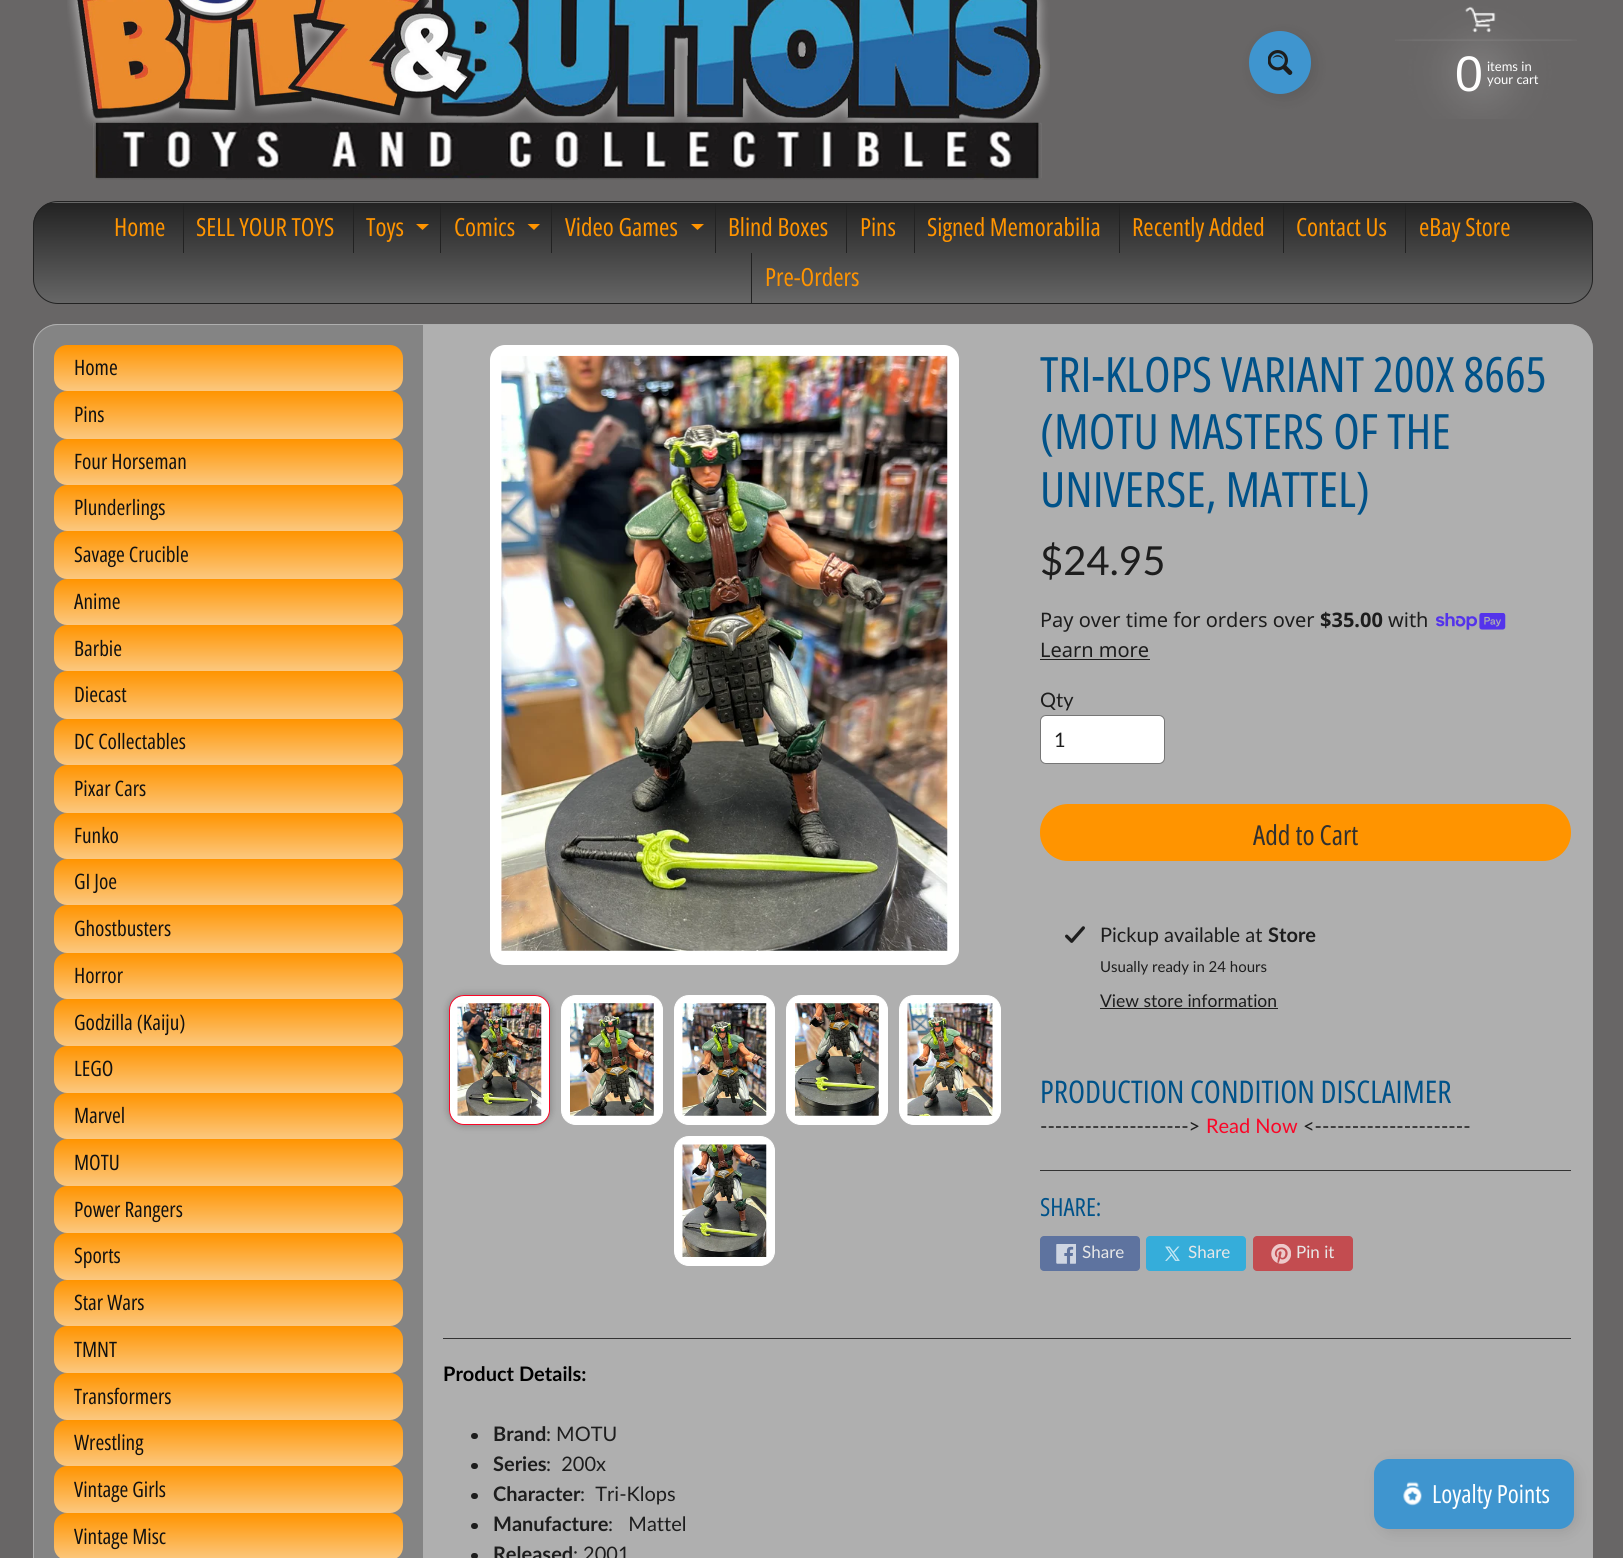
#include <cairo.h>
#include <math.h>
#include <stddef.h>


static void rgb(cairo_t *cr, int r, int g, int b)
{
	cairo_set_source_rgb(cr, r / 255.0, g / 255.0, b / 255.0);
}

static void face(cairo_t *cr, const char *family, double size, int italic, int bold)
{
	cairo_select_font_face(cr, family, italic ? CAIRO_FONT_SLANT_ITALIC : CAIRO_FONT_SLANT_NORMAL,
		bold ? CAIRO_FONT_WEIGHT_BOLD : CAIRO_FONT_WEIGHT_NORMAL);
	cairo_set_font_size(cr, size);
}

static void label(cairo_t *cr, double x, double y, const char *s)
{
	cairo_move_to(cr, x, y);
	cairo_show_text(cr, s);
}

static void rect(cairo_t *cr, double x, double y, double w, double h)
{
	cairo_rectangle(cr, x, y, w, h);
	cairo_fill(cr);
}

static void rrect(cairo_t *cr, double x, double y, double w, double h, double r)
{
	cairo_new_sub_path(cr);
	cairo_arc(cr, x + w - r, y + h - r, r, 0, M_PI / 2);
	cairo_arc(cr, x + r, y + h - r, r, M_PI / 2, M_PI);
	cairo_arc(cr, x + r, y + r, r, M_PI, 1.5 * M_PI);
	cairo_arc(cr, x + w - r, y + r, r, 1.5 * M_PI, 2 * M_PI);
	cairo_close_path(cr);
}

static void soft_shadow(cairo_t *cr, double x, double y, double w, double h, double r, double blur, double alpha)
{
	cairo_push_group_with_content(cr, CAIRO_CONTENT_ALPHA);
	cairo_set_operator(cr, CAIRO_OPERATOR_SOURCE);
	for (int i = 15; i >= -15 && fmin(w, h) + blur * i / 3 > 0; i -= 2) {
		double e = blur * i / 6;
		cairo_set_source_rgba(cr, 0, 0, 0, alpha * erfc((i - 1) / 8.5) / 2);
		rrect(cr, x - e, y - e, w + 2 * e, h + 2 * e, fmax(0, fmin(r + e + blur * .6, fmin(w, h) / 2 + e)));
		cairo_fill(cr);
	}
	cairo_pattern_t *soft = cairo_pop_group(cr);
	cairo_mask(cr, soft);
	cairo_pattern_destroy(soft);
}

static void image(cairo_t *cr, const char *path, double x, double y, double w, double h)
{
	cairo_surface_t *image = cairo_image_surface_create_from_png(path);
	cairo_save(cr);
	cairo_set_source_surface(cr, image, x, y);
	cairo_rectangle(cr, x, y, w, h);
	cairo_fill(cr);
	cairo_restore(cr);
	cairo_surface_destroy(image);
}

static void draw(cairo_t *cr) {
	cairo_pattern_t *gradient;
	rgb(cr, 104, 102, 102);
	cairo_paint(cr);
	image(cr, "image0.png", 67, 0, 983, 180);
	rgb(cr, 0, 0, 0);
	soft_shadow(cr, 1253, 35, 62, 63, 31, 7.5, 0.1);
	rgb(cr, 63, 149, 207);
	rrect(cr, 1249, 31, 62, 63, 31);
	cairo_fill(cr);
	image(cr, "image1.png", 1268, 50, 25, 25);
	image(cr, "image2.png", 1395, 6, 182, 113);
	face(cr, "Liberation Sans", 50, 0, 0);
	rgb(cr, 255, 255, 255);
	label(cr, 1455, 91, "0");
	face(cr, "Lato", 13, 0, 0);
	label(cr, 1487, 71, "items in");
	label(cr, 1487, 84, "your cart");
	cairo_save(cr);
	rrect(cr, 33, 201, 1560, 103, 25);
	cairo_clip(cr);
	gradient = cairo_pattern_create_linear(813, 102, 813, 203);
	cairo_pattern_add_color_stop_rgba(gradient, 0, 0.133, 0.133, 0.133, 1);
	cairo_pattern_add_color_stop_rgba(gradient, 1, 0.4, 0.4, 0.4, 1);
	cairo_set_source(cr, gradient);
	cairo_pattern_destroy(gradient);
	rect(cr, 48, 201, 1530, 2);
	gradient = cairo_pattern_create_linear(813, 202, 813, 303);
	cairo_pattern_add_color_stop_rgba(gradient, 0, 0.133, 0.133, 0.133, 1);
	cairo_pattern_add_color_stop_rgba(gradient, 1, 0.4, 0.4, 0.4, 1);
	cairo_set_source(cr, gradient);
	cairo_pattern_destroy(gradient);
	rect(cr, 33, 203, 1560, 100);
	cairo_restore(cr);
	rrect(cr, 33.5, 201.5, 1559, 102, 24.5);
	rgb(cr, 34, 34, 34);
	cairo_set_line_width(cr, 1);
	cairo_stroke(cr);
	face(cr, "Open Sans Condensed", 25, 0, 0);
	rgb(cr, 255, 148, 0);
	label(cr, 114, 236, "Home");
	rgb(cr, 34, 34, 34);
	rect(cr, 183, 203, 1, 50);
	rgb(cr, 255, 148, 0);
	label(cr, 196, 236, "SELL YOUR TOYS");
	rgb(cr, 34, 34, 34);
	rect(cr, 353, 203, 1, 50);
	rgb(cr, 255, 148, 0);
	label(cr, 366, 236, "Toys");
	cairo_new_path(cr);
	cairo_move_to(cr, 416, 224);
	cairo_line_to(cr, 429, 224);
	cairo_line_to(cr, 422.5, 230);
	cairo_close_path(cr);
	cairo_fill(cr);
	rgb(cr, 34, 34, 34);
	rect(cr, 440, 203, 1, 50);
	rgb(cr, 255, 148, 0);
	label(cr, 454, 236, "Comics");
	cairo_new_path(cr);
	cairo_move_to(cr, 527.5, 224);
	cairo_line_to(cr, 540, 224);
	cairo_line_to(cr, 534, 230);
	cairo_close_path(cr);
	cairo_fill(cr);
	rgb(cr, 34, 34, 34);
	rect(cr, 551, 203, 1, 50);
	rgb(cr, 255, 148, 0);
	label(cr, 565, 236, "Video Games");
	cairo_new_path(cr);
	cairo_move_to(cr, 691, 224);
	cairo_line_to(cr, 704, 224);
	cairo_line_to(cr, 697.5, 230);
	cairo_close_path(cr);
	cairo_fill(cr);
	rgb(cr, 34, 34, 34);
	rect(cr, 715, 203, 1, 50);
	rgb(cr, 255, 148, 0);
	label(cr, 728, 236, "Blind Boxes");
	rgb(cr, 34, 34, 34);
	rect(cr, 846, 203, 1, 50);
	rgb(cr, 255, 148, 0);
	label(cr, 860, 236, "Pins");
	rgb(cr, 34, 34, 34);
	rect(cr, 914, 203, 1, 50);
	rgb(cr, 255, 148, 0);
	label(cr, 927, 236, "Signed Memorabilia");
	rgb(cr, 34, 34, 34);
	rect(cr, 1119, 203, 1, 50);
	rgb(cr, 255, 148, 0);
	label(cr, 1132, 236, "Recently Added");
	rgb(cr, 34, 34, 34);
	rect(cr, 1283, 203, 1, 50);
	rgb(cr, 255, 148, 0);
	label(cr, 1296, 236, "Contact Us");
	rgb(cr, 34, 34, 34);
	rect(cr, 1405, 203, 1, 50);
	rgb(cr, 255, 148, 0);
	label(cr, 1419, 236, "eBay Store");
	rgb(cr, 34, 34, 34);
	rect(cr, 751, 253, 1, 50);
	rgb(cr, 255, 148, 0);
	label(cr, 765, 286, "Pre-Orders");
	rgb(cr, 175, 175, 175);
	rrect(cr, 33, 324, 1560, 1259, 25);
	cairo_fill(cr);
	rrect(cr, 33.5, 324.5, 1559, 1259, 24.5);
	cairo_set_source_rgba(cr, 0.686, 0.686, 0.686, 0.7);
	cairo_stroke(cr);
	rgb(cr, 132, 132, 132);
	cairo_new_path(cr);
	cairo_move_to(cr, 58, 325);
	cairo_line_to(cr, 423, 325);
	cairo_line_to(cr, 423, 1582);
	cairo_line_to(cr, 58, 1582);
	cairo_curve_to(cr, 44.5, 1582, 34, 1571.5, 34, 1558);
	cairo_line_to(cr, 34, 349);
	cairo_curve_to(cr, 34, 335.5, 44.5, 325, 58, 325);
	cairo_close_path(cr);
	cairo_fill(cr);
	gradient = cairo_pattern_create_linear(228, 345, 228, 391);
	cairo_pattern_add_color_stop_rgba(gradient, 0, 1, 0.58, 0, 1);
	cairo_pattern_add_color_stop_rgba(gradient, 1, 0.988, 0.784, 0.498, 1);
	cairo_set_source(cr, gradient);
	cairo_pattern_destroy(gradient);
	rrect(cr, 54, 345, 349, 46, 13);
	cairo_fill(cr);
	face(cr, "Open Sans Condensed", 21.25, 0, 0);
	rgb(cr, 17, 17, 17);
	label(cr, 74, 375, "Home");
	gradient = cairo_pattern_create_linear(228, 391, 228, 439);
	cairo_pattern_add_color_stop_rgba(gradient, 0, 1, 0.58, 0, 1);
	cairo_pattern_add_color_stop_rgba(gradient, 1, 0.988, 0.784, 0.498, 1);
	cairo_set_source(cr, gradient);
	cairo_pattern_destroy(gradient);
	rrect(cr, 54, 391, 349, 48, 13);
	cairo_fill(cr);
	rgb(cr, 17, 17, 17);
	label(cr, 74, 422, "Pins");
	gradient = cairo_pattern_create_linear(228, 439, 228, 485);
	cairo_pattern_add_color_stop_rgba(gradient, 0, 1, 0.58, 0, 1);
	cairo_pattern_add_color_stop_rgba(gradient, 1, 0.988, 0.784, 0.498, 1);
	cairo_set_source(cr, gradient);
	cairo_pattern_destroy(gradient);
	rrect(cr, 54, 439, 349, 46, 13);
	cairo_fill(cr);
	rgb(cr, 17, 17, 17);
	label(cr, 74, 469, "Four Horseman");
	gradient = cairo_pattern_create_linear(228, 485, 228, 531);
	cairo_pattern_add_color_stop_rgba(gradient, 0, 1, 0.58, 0, 1);
	cairo_pattern_add_color_stop_rgba(gradient, 1, 0.988, 0.784, 0.498, 1);
	cairo_set_source(cr, gradient);
	cairo_pattern_destroy(gradient);
	rrect(cr, 54, 485, 349, 46, 13);
	cairo_fill(cr);
	rgb(cr, 17, 17, 17);
	label(cr, 74, 515, "Plunderlings");
	gradient = cairo_pattern_create_linear(228, 531, 228, 579);
	cairo_pattern_add_color_stop_rgba(gradient, 0, 1, 0.58, 0, 1);
	cairo_pattern_add_color_stop_rgba(gradient, 1, 0.988, 0.784, 0.498, 1);
	cairo_set_source(cr, gradient);
	cairo_pattern_destroy(gradient);
	rrect(cr, 54, 531, 349, 48, 13);
	cairo_fill(cr);
	rgb(cr, 17, 17, 17);
	label(cr, 74, 562, "Savage Crucible");
	gradient = cairo_pattern_create_linear(228, 579, 228, 625);
	cairo_pattern_add_color_stop_rgba(gradient, 0, 1, 0.58, 0, 1);
	cairo_pattern_add_color_stop_rgba(gradient, 1, 0.988, 0.784, 0.498, 1);
	cairo_set_source(cr, gradient);
	cairo_pattern_destroy(gradient);
	rrect(cr, 54, 579, 349, 46, 13);
	cairo_fill(cr);
	rgb(cr, 17, 17, 17);
	label(cr, 74, 609, "Anime");
	gradient = cairo_pattern_create_linear(228, 625, 228, 671);
	cairo_pattern_add_color_stop_rgba(gradient, 0, 1, 0.58, 0, 1);
	cairo_pattern_add_color_stop_rgba(gradient, 1, 0.988, 0.784, 0.498, 1);
	cairo_set_source(cr, gradient);
	cairo_pattern_destroy(gradient);
	rrect(cr, 54, 625, 349, 46, 13);
	cairo_fill(cr);
	rgb(cr, 17, 17, 17);
	label(cr, 74, 656, "Barbie");
	gradient = cairo_pattern_create_linear(228, 671, 228, 719);
	cairo_pattern_add_color_stop_rgba(gradient, 0, 1, 0.58, 0, 1);
	cairo_pattern_add_color_stop_rgba(gradient, 1, 0.988, 0.784, 0.498, 1);
	cairo_set_source(cr, gradient);
	cairo_pattern_destroy(gradient);
	rrect(cr, 54, 671, 349, 48, 13);
	cairo_fill(cr);
	rgb(cr, 17, 17, 17);
	label(cr, 74, 702, "Diecast");
	gradient = cairo_pattern_create_linear(228, 719, 228, 765);
	cairo_pattern_add_color_stop_rgba(gradient, 0, 1, 0.58, 0, 1);
	cairo_pattern_add_color_stop_rgba(gradient, 1, 0.988, 0.784, 0.498, 1);
	cairo_set_source(cr, gradient);
	cairo_pattern_destroy(gradient);
	rrect(cr, 54, 719, 349, 46, 13);
	cairo_fill(cr);
	rgb(cr, 17, 17, 17);
	label(cr, 74, 749, "DC Collectables");
	gradient = cairo_pattern_create_linear(228, 765, 228, 813);
	cairo_pattern_add_color_stop_rgba(gradient, 0, 1, 0.58, 0, 1);
	cairo_pattern_add_color_stop_rgba(gradient, 1, 0.988, 0.784, 0.498, 1);
	cairo_set_source(cr, gradient);
	cairo_pattern_destroy(gradient);
	rrect(cr, 54, 765, 349, 48, 13);
	cairo_fill(cr);
	rgb(cr, 17, 17, 17);
	label(cr, 74, 796, "Pixar Cars");
	gradient = cairo_pattern_create_linear(228, 813, 228, 859);
	cairo_pattern_add_color_stop_rgba(gradient, 0, 1, 0.58, 0, 1);
	cairo_pattern_add_color_stop_rgba(gradient, 1, 0.988, 0.784, 0.498, 1);
	cairo_set_source(cr, gradient);
	cairo_pattern_destroy(gradient);
	rrect(cr, 54, 813, 349, 46, 13);
	cairo_fill(cr);
	rgb(cr, 17, 17, 17);
	label(cr, 74, 843, "Funko");
	gradient = cairo_pattern_create_linear(228, 859, 228, 905);
	cairo_pattern_add_color_stop_rgba(gradient, 0, 1, 0.58, 0, 1);
	cairo_pattern_add_color_stop_rgba(gradient, 1, 0.988, 0.784, 0.498, 1);
	cairo_set_source(cr, gradient);
	cairo_pattern_destroy(gradient);
	rrect(cr, 54, 859, 349, 46, 13);
	cairo_fill(cr);
	rgb(cr, 17, 17, 17);
	label(cr, 74, 889, "GI Joe");
	gradient = cairo_pattern_create_linear(228, 905, 228, 953);
	cairo_pattern_add_color_stop_rgba(gradient, 0, 1, 0.58, 0, 1);
	cairo_pattern_add_color_stop_rgba(gradient, 1, 0.988, 0.784, 0.498, 1);
	cairo_set_source(cr, gradient);
	cairo_pattern_destroy(gradient);
	rrect(cr, 54, 905, 349, 48, 13);
	cairo_fill(cr);
	rgb(cr, 17, 17, 17);
	label(cr, 74, 936, "Ghostbusters");
	gradient = cairo_pattern_create_linear(228, 953, 228, 999);
	cairo_pattern_add_color_stop_rgba(gradient, 0, 1, 0.58, 0, 1);
	cairo_pattern_add_color_stop_rgba(gradient, 1, 0.988, 0.784, 0.498, 1);
	cairo_set_source(cr, gradient);
	cairo_pattern_destroy(gradient);
	rrect(cr, 54, 953, 349, 46, 13);
	cairo_fill(cr);
	rgb(cr, 17, 17, 17);
	label(cr, 74, 983, "Horror");
	gradient = cairo_pattern_create_linear(228, 999, 228, 1046);
	cairo_pattern_add_color_stop_rgba(gradient, 0, 1, 0.58, 0, 1);
	cairo_pattern_add_color_stop_rgba(gradient, 1, 0.988, 0.784, 0.498, 1);
	cairo_set_source(cr, gradient);
	cairo_pattern_destroy(gradient);
	rrect(cr, 54, 999, 349, 47, 13);
	cairo_fill(cr);
	rgb(cr, 17, 17, 17);
	label(cr, 74, 1030, "Godzilla (Kaiju)");
	gradient = cairo_pattern_create_linear(228, 1046, 228, 1093);
	cairo_pattern_add_color_stop_rgba(gradient, 0, 1, 0.58, 0, 1);
	cairo_pattern_add_color_stop_rgba(gradient, 1, 0.988, 0.784, 0.498, 1);
	cairo_set_source(cr, gradient);
	cairo_pattern_destroy(gradient);
	rrect(cr, 54, 1046, 349, 47, 13);
	cairo_fill(cr);
	rgb(cr, 17, 17, 17);
	label(cr, 74, 1076, "LEGO");
	gradient = cairo_pattern_create_linear(228, 1093, 228, 1139);
	cairo_pattern_add_color_stop_rgba(gradient, 0, 1, 0.58, 0, 1);
	cairo_pattern_add_color_stop_rgba(gradient, 1, 0.988, 0.784, 0.498, 1);
	cairo_set_source(cr, gradient);
	cairo_pattern_destroy(gradient);
	rrect(cr, 54, 1093, 349, 46, 13);
	cairo_fill(cr);
	rgb(cr, 17, 17, 17);
	label(cr, 74, 1123, "Marvel");
	gradient = cairo_pattern_create_linear(228, 1139, 228, 1186);
	cairo_pattern_add_color_stop_rgba(gradient, 0, 1, 0.58, 0, 1);
	cairo_pattern_add_color_stop_rgba(gradient, 1, 0.988, 0.784, 0.498, 1);
	cairo_set_source(cr, gradient);
	cairo_pattern_destroy(gradient);
	rrect(cr, 54, 1139, 349, 47, 13);
	cairo_fill(cr);
	rgb(cr, 17, 17, 17);
	label(cr, 74, 1170, "MOTU");
	gradient = cairo_pattern_create_linear(228, 1186, 228, 1233);
	cairo_pattern_add_color_stop_rgba(gradient, 0, 1, 0.58, 0, 1);
	cairo_pattern_add_color_stop_rgba(gradient, 1, 0.988, 0.784, 0.498, 1);
	cairo_set_source(cr, gradient);
	cairo_pattern_destroy(gradient);
	rrect(cr, 54, 1186, 349, 47, 13);
	cairo_fill(cr);
	rgb(cr, 17, 17, 17);
	label(cr, 74, 1217, "Power Rangers");
	gradient = cairo_pattern_create_linear(228, 1233, 228, 1280);
	cairo_pattern_add_color_stop_rgba(gradient, 0, 1, 0.58, 0, 1);
	cairo_pattern_add_color_stop_rgba(gradient, 1, 0.988, 0.784, 0.498, 1);
	cairo_set_source(cr, gradient);
	cairo_pattern_destroy(gradient);
	rrect(cr, 54, 1233, 349, 47, 13);
	cairo_fill(cr);
	rgb(cr, 17, 17, 17);
	label(cr, 74, 1263, "Sports");
	gradient = cairo_pattern_create_linear(228, 1280, 228, 1326);
	cairo_pattern_add_color_stop_rgba(gradient, 0, 1, 0.58, 0, 1);
	cairo_pattern_add_color_stop_rgba(gradient, 1, 0.988, 0.784, 0.498, 1);
	cairo_set_source(cr, gradient);
	cairo_pattern_destroy(gradient);
	rrect(cr, 54, 1280, 349, 46, 13);
	cairo_fill(cr);
	rgb(cr, 17, 17, 17);
	label(cr, 74, 1310, "Star Wars");
	gradient = cairo_pattern_create_linear(228, 1326, 228, 1373);
	cairo_pattern_add_color_stop_rgba(gradient, 0, 1, 0.58, 0, 1);
	cairo_pattern_add_color_stop_rgba(gradient, 1, 0.988, 0.784, 0.498, 1);
	cairo_set_source(cr, gradient);
	cairo_pattern_destroy(gradient);
	rrect(cr, 54, 1326, 349, 47, 13);
	cairo_fill(cr);
	rgb(cr, 17, 17, 17);
	label(cr, 74, 1357, "TMNT");
	gradient = cairo_pattern_create_linear(228, 1373, 228, 1420);
	cairo_pattern_add_color_stop_rgba(gradient, 0, 1, 0.58, 0, 1);
	cairo_pattern_add_color_stop_rgba(gradient, 1, 0.988, 0.784, 0.498, 1);
	cairo_set_source(cr, gradient);
	cairo_pattern_destroy(gradient);
	rrect(cr, 54, 1373, 349, 47, 13);
	cairo_fill(cr);
	rgb(cr, 17, 17, 17);
	label(cr, 74, 1404, "Transformers");
	gradient = cairo_pattern_create_linear(228, 1420, 228, 1466);
	cairo_pattern_add_color_stop_rgba(gradient, 0, 1, 0.58, 0, 1);
	cairo_pattern_add_color_stop_rgba(gradient, 1, 0.988, 0.784, 0.498, 1);
	cairo_set_source(cr, gradient);
	cairo_pattern_destroy(gradient);
	rrect(cr, 54, 1420, 349, 46, 13);
	cairo_fill(cr);
	rgb(cr, 17, 17, 17);
	label(cr, 74, 1450, "Wrestling");
	gradient = cairo_pattern_create_linear(228, 1466, 228, 1513);
	cairo_pattern_add_color_stop_rgba(gradient, 0, 1, 0.58, 0, 1);
	cairo_pattern_add_color_stop_rgba(gradient, 1, 0.988, 0.784, 0.498, 1);
	cairo_set_source(cr, gradient);
	cairo_pattern_destroy(gradient);
	rrect(cr, 54, 1466, 349, 47, 13);
	cairo_fill(cr);
	rgb(cr, 17, 17, 17);
	label(cr, 74, 1497, "Vintage Girls");
	gradient = cairo_pattern_create_linear(228, 1513, 228, 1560);
	cairo_pattern_add_color_stop_rgba(gradient, 0, 1, 0.58, 0, 1);
	cairo_pattern_add_color_stop_rgba(gradient, 1, 0.988, 0.784, 0.498, 1);
	cairo_set_source(cr, gradient);
	cairo_pattern_destroy(gradient);
	rrect(cr, 54, 1513, 349, 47, 13);
	cairo_fill(cr);
	rgb(cr, 17, 17, 17);
	label(cr, 74, 1544, "Vintage Misc");
	rgb(cr, 255, 255, 255);
	rrect(cr, 490, 345, 469, 620, 15);
	cairo_fill(cr);
	image(cr, "image3.png", 501, 355, 447, 596);
	rgb(cr, 0, 0, 0);
	soft_shadow(cr, 449, 995, 101, 130, 15, 4, 0.3);
	rgb(cr, 255, 255, 255);
	rrect(cr, 449.5, 995.5, 100, 129, 14.5);
	cairo_fill_preserve(cr);
	rgb(cr, 250, 6, 39);
	cairo_stroke(cr);
	image(cr, "image4.png", 457, 1003, 85, 113);
	rgb(cr, 255, 255, 255);
	rrect(cr, 561.5, 995.5, 101, 129, 14.5);
	cairo_fill_preserve(cr);
	cairo_stroke(cr);
	image(cr, "image5.png", 570, 1003, 84, 113);
	rrect(cr, 674.5, 995.5, 100, 129, 14.5);
	cairo_fill_preserve(cr);
	cairo_stroke(cr);
	image(cr, "image6.png", 682, 1003, 85, 113);
	rrect(cr, 786.5, 995.5, 101, 129, 14.5);
	cairo_fill_preserve(cr);
	cairo_stroke(cr);
	image(cr, "image7.png", 795, 1003, 84, 113);
	rrect(cr, 899.5, 995.5, 101, 129, 14.5);
	cairo_fill_preserve(cr);
	cairo_stroke(cr);
	image(cr, "image8.png", 907, 1003, 86, 113);
	rrect(cr, 674.5, 1136.5, 100, 129, 14.5);
	cairo_fill_preserve(cr);
	cairo_stroke(cr);
	image(cr, "image9.png", 682, 1144, 85, 113);
	face(cr, "Open Sans Condensed", 48.75, 0, 0);
	rgb(cr, 0, 82, 137);
	label(cr, 1040, 392, "TRI-KLOPS VARIANT 200X 8665");
	label(cr, 1040, 449, "(MOTU MASTERS OF THE");
	label(cr, 1040, 507, "UNIVERSE, MATTEL)");
	face(cr, "Lato", 40, 0, 0);
	rgb(cr, 29, 29, 29);
	label(cr, 1040, 575, "$24.95");
	face(cr, "Noto Sans", 20, 0, 0);
	label(cr, 1040, 627, "Pay over time for orders over");
	face(cr, "Noto Sans", 20, 0, 1);
	label(cr, 1320, 627, "$35.00");
	face(cr, "Noto Sans", 20, 0, 0);
	label(cr, 1388, 627, "with");
	image(cr, "image10.png", 1436, 613, 70, 17);
	label(cr, 1040, 657, "Learn more");
	rect(cr, 1040, 659, 110, 1);
	face(cr, "Lato", 20, 0, 0);
	label(cr, 1040, 707, "Qty");
	rgb(cr, 255, 255, 255);
	rrect(cr, 1040.5, 715.5, 124, 48, 5.5);
	cairo_fill_preserve(cr);
	rgb(cr, 118, 118, 118);
	cairo_stroke(cr);
	rgb(cr, 29, 29, 29);
	label(cr, 1054, 747, "1");
	rgb(cr, 255, 148, 0);
	rrect(cr, 1040, 804, 531, 57, 28);
	cairo_fill(cr);
	face(cr, "Open Sans Condensed", 27.5, 0, 0);
	rgb(cr, 48, 48, 48);
	label(cr, 1253, 845, "Add to Cart");
	image(cr, "image11.png", 1065, 926, 20, 17);
	face(cr, "Lato", 20, 0, 0);
	rgb(cr, 29, 29, 29);
	label(cr, 1100, 942, "Pickup available at");
	face(cr, "Lato", 20, 0, 1);
	label(cr, 1268, 942, "Store");
	face(cr, "Lato", 15, 0, 0);
	label(cr, 1100, 972, "Usually ready in 24 hours");
	face(cr, "Lato", 17.5, 0, 0);
	label(cr, 1100, 1007, "View store information");
	rect(cr, 1100, 1008, 178, 1);
	face(cr, "Open Sans Condensed", 31.25, 0, 0);
	rgb(cr, 0, 82, 137);
	label(cr, 1040, 1103, "PRODUCTION CONDITION DISCLAIMER");
	face(cr, "Lato", 20, 0, 0);
	rgb(cr, 29, 29, 29);
	label(cr, 1040, 1133, "-------------------->");
	rgb(cr, 250, 6, 39);
	label(cr, 1206, 1133, "Read Now");
	rgb(cr, 29, 29, 29);
	label(cr, 1303, 1133, "<---------------------");
	rgb(cr, 51, 51, 51);
	rect(cr, 1040, 1170, 531, 1);
	face(cr, "Open Sans Condensed", 25, 0, 0);
	rgb(cr, 0, 82, 137);
	label(cr, 1040, 1216, "SHARE:");
	rgb(cr, 94, 115, 159);
	rrect(cr, 1040, 1236, 100, 35, 4);
	cairo_fill(cr);
	image(cr, "image12.png", 1056, 1244, 20, 20);
	face(cr, "Lato", 17, 0, 0);
	rgb(cr, 231, 231, 231);
	label(cr, 1082, 1258, "Share");
	rgb(cr, 53, 173, 218);
	rrect(cr, 1146, 1236, 100, 35, 4);
	cairo_fill(cr);
	image(cr, "image13.png", 1165, 1246, 15, 15);
	rgb(cr, 231, 231, 231);
	label(cr, 1188, 1258, "Share");
	rgb(cr, 195, 76, 80);
	rrect(cr, 1253, 1236, 100, 35, 4);
	cairo_fill(cr);
	image(cr, "image14.png", 1271, 1244, 20, 20);
	rgb(cr, 231, 231, 231);
	label(cr, 1296, 1258, "Pin it");
	rgb(cr, 51, 51, 51);
	rect(cr, 443, 1338, 1128, 1);
	face(cr, "Lato", 20, 0, 1);
	rgb(cr, 0, 0, 0);
	label(cr, 443, 1381, "Product Details:");
	rgb(cr, 29, 29, 29);
	rrect(cr, 471, 1433, 7, 6, 3);
	cairo_fill(cr);
	label(cr, 493, 1441, "Brand");
	face(cr, "Lato", 20, 0, 0);
	label(cr, 546, 1441, ": MOTU");
	rrect(cr, 471, 1463, 7, 6, 3);
	cairo_fill(cr);
	face(cr, "Lato", 20, 0, 1);
	label(cr, 493, 1471, "Series");
	face(cr, "Lato", 20, 0, 0);
	label(cr, 546, 1471, ":  200x");
	rrect(cr, 471, 1493, 7, 6, 3);
	cairo_fill(cr);
	face(cr, "Lato", 20, 0, 1);
	label(cr, 493, 1501, "Character");
	face(cr, "Lato", 20, 0, 0);
	label(cr, 580, 1501, ":  Tri-Klops");
	rrect(cr, 471, 1523, 7, 6, 3);
	cairo_fill(cr);
	face(cr, "Lato", 20, 0, 1);
	label(cr, 493, 1531, "Manufacture");
	face(cr, "Lato", 20, 0, 0);
	label(cr, 608, 1531, ":   Mattel");
	rrect(cr, 471, 1553, 7, 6, 3);
	cairo_fill(cr);
	face(cr, "Lato", 20, 0, 1);
	label(cr, 493, 1561, "Released");
	face(cr, "Lato", 20, 0, 0);
	label(cr, 573, 1561, ": 2001");
	rgb(cr, 0, 0, 0);
	soft_shadow(cr, 1378, 1463, 200, 70, 15, 7.5, 0.1);
	rgb(cr, 63, 149, 207);
	rrect(cr, 1374, 1459, 200, 70, 15);
	cairo_fill(cr);
	image(cr, "image15.png", 1403, 1481, 19, 25);
	face(cr, "Open Sans Condensed", 25, 0, 0);
	rgb(cr, 255, 255, 255);
	label(cr, 1432, 1503, "Loyalty Points");
}

int main(void) {
	cairo_surface_t *surface = cairo_image_surface_create(CAIRO_FORMAT_RGB24, 1623, 1558);
	cairo_t *cr = cairo_create(surface);
	cairo_font_options_t *options = cairo_font_options_create();
	cairo_font_options_set_hint_metrics(options, CAIRO_HINT_METRICS_OFF);
	cairo_font_options_set_hint_style(options, CAIRO_HINT_STYLE_NONE);
	cairo_set_font_options(cr, options);
	cairo_set_miter_limit(cr, 4);
	draw(cr);
	cairo_surface_write_to_png(surface, "render.png");
	cairo_font_options_destroy(options);
	cairo_destroy(cr);
	cairo_surface_destroy(surface);
	return 0;
}
